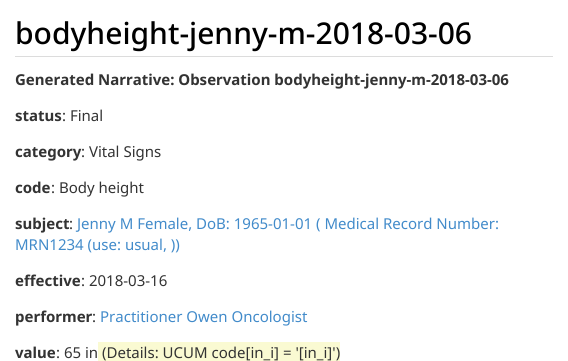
#include <cairo.h>
#include <math.h>
#include <stddef.h>


static void rgb(cairo_t *cr, int r, int g, int b)
{
	cairo_set_source_rgb(cr, r / 255.0, g / 255.0, b / 255.0);
}

static void face(cairo_t *cr, const char *family, double size, int italic, int bold)
{
	cairo_select_font_face(cr, family, italic ? CAIRO_FONT_SLANT_ITALIC : CAIRO_FONT_SLANT_NORMAL,
		bold ? CAIRO_FONT_WEIGHT_BOLD : CAIRO_FONT_WEIGHT_NORMAL);
	cairo_set_font_size(cr, size);
}

static void label(cairo_t *cr, double x, double y, const char *s)
{
	cairo_move_to(cr, x, y);
	cairo_show_text(cr, s);
}

static void rect(cairo_t *cr, double x, double y, double w, double h)
{
	cairo_rectangle(cr, x, y, w, h);
	cairo_fill(cr);
}

static void draw(cairo_t *cr) {
	rgb(cr, 255, 255, 255);
	cairo_paint(cr);
	rgb(cr, 220, 220, 220);
	rect(cr, 15, 56, 538, 1);
	face(cr, "Noto Sans Medium", 30, 0, 0);
	rgb(cr, 0, 0, 0);
	label(cr, 15, 44, "bodyheight-jenny-m-2018-03-06");
	face(cr, "Noto Sans", 15, 0, 1);
	rgb(cr, 51, 51, 51);
	label(cr, 15, 85, "Generated Narrative: Observation bodyheight-jenny-m-2018-03-06");
	label(cr, 15, 121, "status");
	face(cr, "Noto Sans", 15, 0, 0);
	label(cr, 62, 121, ": Final");
	face(cr, "Noto Sans", 15, 0, 1);
	label(cr, 15, 157, "category");
	face(cr, "Noto Sans", 15, 0, 0);
	label(cr, 81, 157, ": Vital Signs");
	face(cr, "Noto Sans", 15, 0, 1);
	label(cr, 15, 193, "code");
	face(cr, "Noto Sans", 15, 0, 0);
	label(cr, 51, 193, ": Body height");
	face(cr, "Noto Sans", 15, 0, 1);
	label(cr, 15, 229, "subject");
	face(cr, "Noto Sans", 15, 0, 0);
	label(cr, 69, 229, ":");
	rgb(cr, 66, 139, 202);
	label(cr, 77, 229, "Jenny M Female, DoB: 1965-01-01 ( Medical Record Number:");
	label(cr, 15, 250, "MRN1234 (use: usual, ))");
	face(cr, "Noto Sans", 15, 0, 1);
	rgb(cr, 51, 51, 51);
	label(cr, 15, 286, "effective");
	face(cr, "Noto Sans", 15, 0, 0);
	label(cr, 81, 286, ": 2018-03-16");
	face(cr, "Noto Sans", 15, 0, 1);
	label(cr, 15, 322, "performer");
	face(cr, "Noto Sans", 15, 0, 0);
	label(cr, 92, 322, ":");
	rgb(cr, 66, 139, 202);
	label(cr, 100, 322, "Practitioner Owen Oncologist");
	face(cr, "Noto Sans", 15, 0, 1);
	rgb(cr, 51, 51, 51);
	label(cr, 15, 358, "value");
	face(cr, "Noto Sans", 15, 0, 0);
	label(cr, 56, 358, ": 65 in");
	rgb(cr, 250, 250, 210);
	rect(cr, 98, 342, 242, 19);
	rgb(cr, 51, 51, 51);
	label(cr, 102, 358, "(Details: UCUM code[in_i] = '[in_i]')");
}

int main(void) {
	cairo_surface_t *surface = cairo_image_surface_create(CAIRO_FORMAT_RGB24, 568, 361);
	cairo_t *cr = cairo_create(surface);
	cairo_font_options_t *options = cairo_font_options_create();
	cairo_font_options_set_hint_metrics(options, CAIRO_HINT_METRICS_OFF);
	cairo_font_options_set_hint_style(options, CAIRO_HINT_STYLE_NONE);
	cairo_set_font_options(cr, options);
	cairo_set_miter_limit(cr, 4);
	draw(cr);
	cairo_surface_write_to_png(surface, "render.png");
	cairo_font_options_destroy(options);
	cairo_destroy(cr);
	cairo_surface_destroy(surface);
	return 0;
}
